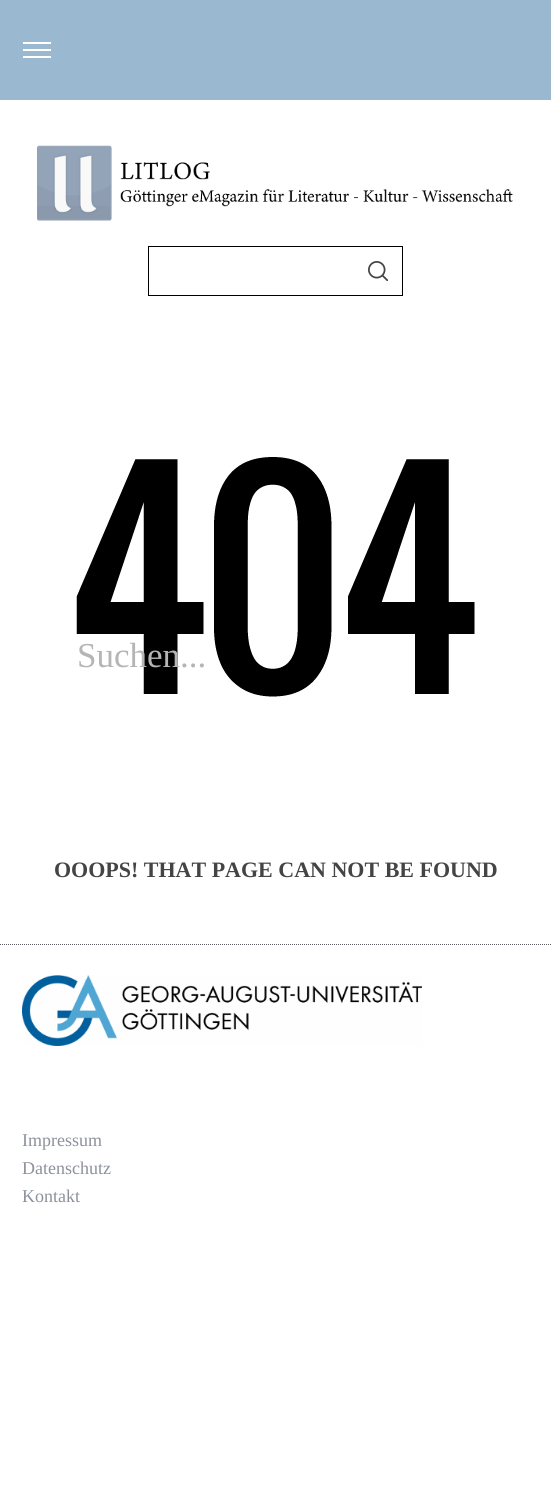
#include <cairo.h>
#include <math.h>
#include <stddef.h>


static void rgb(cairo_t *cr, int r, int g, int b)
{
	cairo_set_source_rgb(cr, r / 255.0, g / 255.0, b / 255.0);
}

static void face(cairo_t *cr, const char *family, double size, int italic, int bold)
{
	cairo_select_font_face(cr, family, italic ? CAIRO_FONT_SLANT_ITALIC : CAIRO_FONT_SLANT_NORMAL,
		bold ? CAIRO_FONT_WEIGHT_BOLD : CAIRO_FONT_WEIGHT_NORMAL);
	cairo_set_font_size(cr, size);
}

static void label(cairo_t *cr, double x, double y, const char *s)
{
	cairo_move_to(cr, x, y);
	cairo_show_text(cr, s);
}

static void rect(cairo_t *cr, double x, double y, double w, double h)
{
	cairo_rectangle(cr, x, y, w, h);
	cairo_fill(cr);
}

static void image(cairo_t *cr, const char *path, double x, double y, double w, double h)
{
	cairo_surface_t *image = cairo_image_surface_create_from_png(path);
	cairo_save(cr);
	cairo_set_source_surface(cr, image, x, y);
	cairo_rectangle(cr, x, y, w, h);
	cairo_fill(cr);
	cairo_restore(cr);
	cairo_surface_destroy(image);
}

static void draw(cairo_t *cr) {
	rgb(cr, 255, 255, 255);
	cairo_paint(cr);
	rgb(cr, 154, 185, 209);
	rect(cr, 0, 0, 551, 100);
	rgb(cr, 255, 255, 255);
	rect(cr, 23, 49, 28, 2);
	rect(cr, 23, 42, 28, 2);
	rect(cr, 23, 56, 28, 2);
	image(cr, "image0.png", 37, 145, 476, 76);
	cairo_rectangle(cr, 148.5, 246.5, 254, 49);
	rgb(cr, 0, 0, 0);
	cairo_set_line_width(cr, 1);
	cairo_stroke(cr);
	image(cr, "image1.png", 368, 261, 20, 20);
	image(cr, "image2.png", 76, 457, 399, 240);
	face(cr, "Liberation Serif", 35, 0, 0);
	rgb(cr, 181, 181, 181);
	label(cr, 77, 667, "Suchen...");
	face(cr, "Liberation Serif", 22, 0, 1);
	rgb(cr, 68, 68, 68);
	label(cr, 54, 877, "OOOPS! THAT PAGE CAN NOT BE FOUND");
	cairo_new_path(cr);
	cairo_move_to(cr, 0, 944.5);
	cairo_line_to(cr, 551, 944.5);
	rgb(cr, 88, 91, 97);
	cairo_set_dash(cr, (double[]){1, 1}, 2, 0);
	cairo_stroke(cr);
	image(cr, "image3.png", 22, 975, 400, 71);
	face(cr, "Liberation Serif", 18, 0, 0);
	rgb(cr, 140, 145, 155);
	label(cr, 22, 1146, "Impressum");
	label(cr, 22, 1174, "Datenschutz");
	label(cr, 22, 1202, "Kontakt");
}

int main(void) {
	cairo_surface_t *surface = cairo_image_surface_create(CAIRO_FORMAT_RGB24, 551, 1494);
	cairo_t *cr = cairo_create(surface);
	cairo_font_options_t *options = cairo_font_options_create();
	cairo_font_options_set_hint_metrics(options, CAIRO_HINT_METRICS_OFF);
	cairo_font_options_set_hint_style(options, CAIRO_HINT_STYLE_NONE);
	cairo_set_font_options(cr, options);
	cairo_set_miter_limit(cr, 4);
	draw(cr);
	cairo_surface_write_to_png(surface, "render.png");
	cairo_font_options_destroy(options);
	cairo_destroy(cr);
	cairo_surface_destroy(surface);
	return 0;
}
